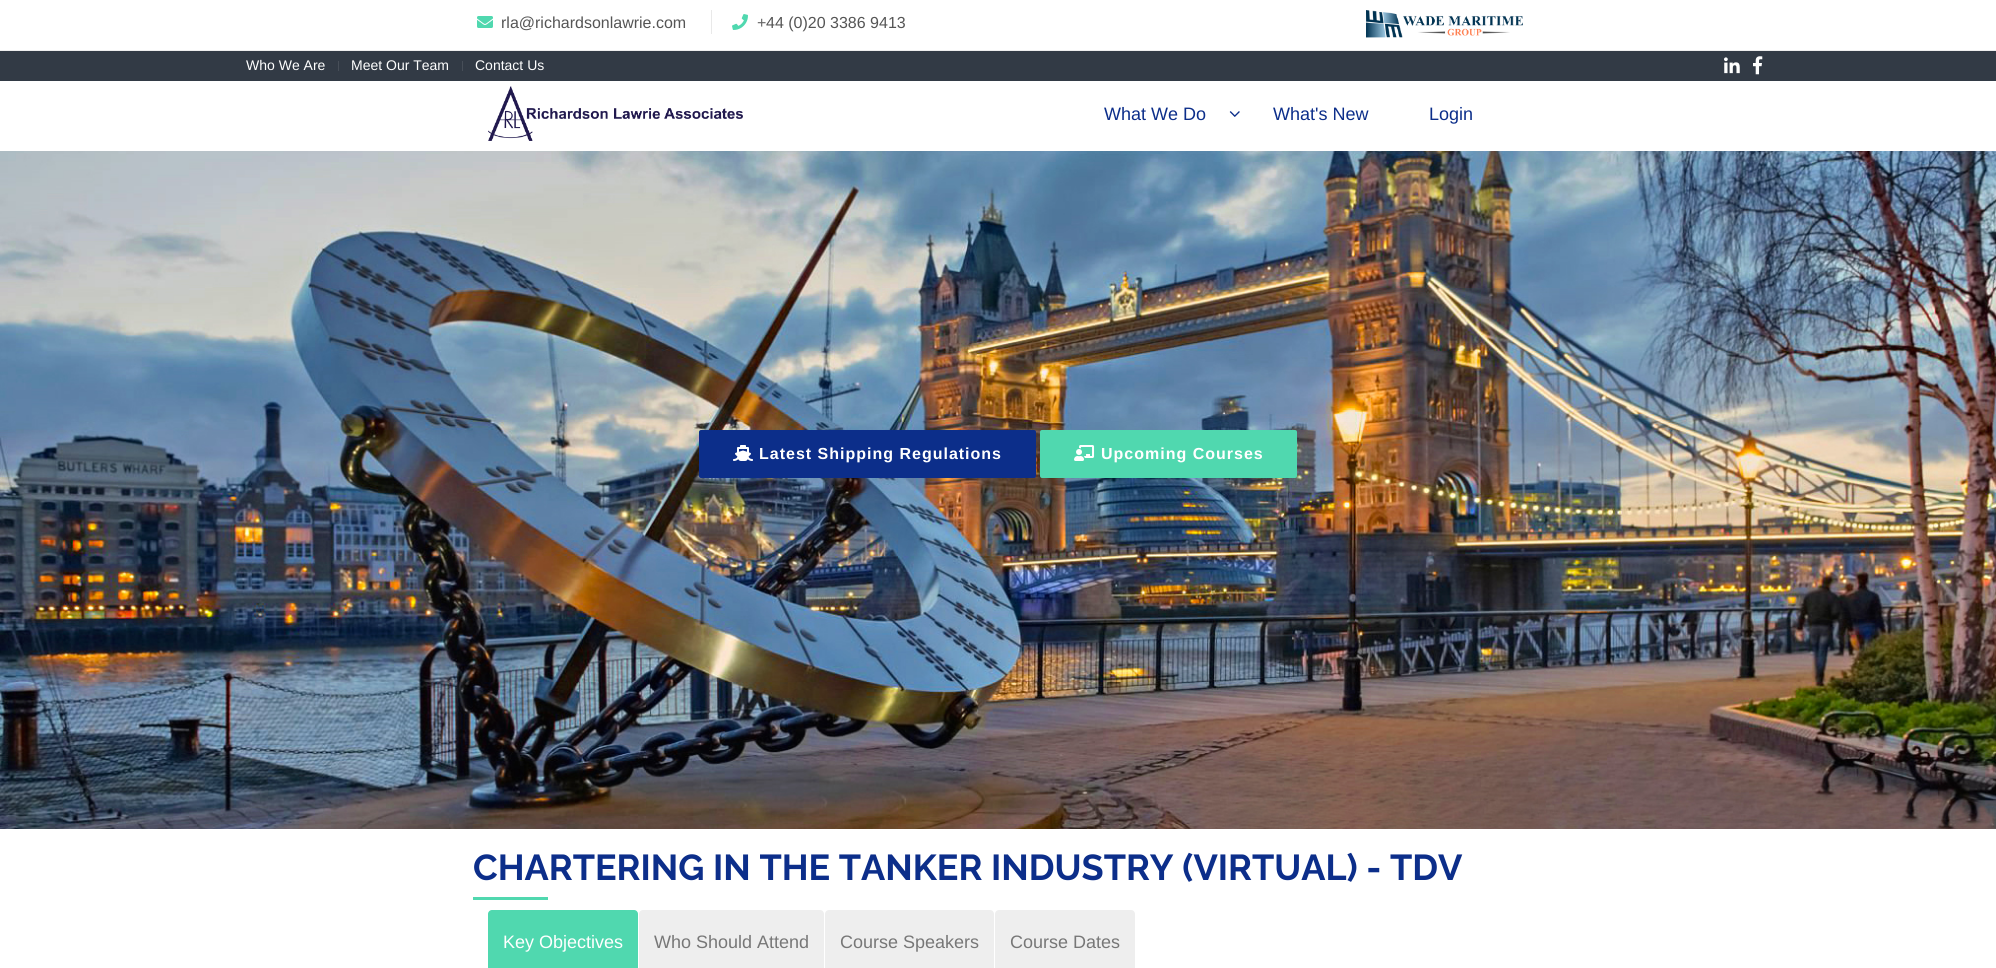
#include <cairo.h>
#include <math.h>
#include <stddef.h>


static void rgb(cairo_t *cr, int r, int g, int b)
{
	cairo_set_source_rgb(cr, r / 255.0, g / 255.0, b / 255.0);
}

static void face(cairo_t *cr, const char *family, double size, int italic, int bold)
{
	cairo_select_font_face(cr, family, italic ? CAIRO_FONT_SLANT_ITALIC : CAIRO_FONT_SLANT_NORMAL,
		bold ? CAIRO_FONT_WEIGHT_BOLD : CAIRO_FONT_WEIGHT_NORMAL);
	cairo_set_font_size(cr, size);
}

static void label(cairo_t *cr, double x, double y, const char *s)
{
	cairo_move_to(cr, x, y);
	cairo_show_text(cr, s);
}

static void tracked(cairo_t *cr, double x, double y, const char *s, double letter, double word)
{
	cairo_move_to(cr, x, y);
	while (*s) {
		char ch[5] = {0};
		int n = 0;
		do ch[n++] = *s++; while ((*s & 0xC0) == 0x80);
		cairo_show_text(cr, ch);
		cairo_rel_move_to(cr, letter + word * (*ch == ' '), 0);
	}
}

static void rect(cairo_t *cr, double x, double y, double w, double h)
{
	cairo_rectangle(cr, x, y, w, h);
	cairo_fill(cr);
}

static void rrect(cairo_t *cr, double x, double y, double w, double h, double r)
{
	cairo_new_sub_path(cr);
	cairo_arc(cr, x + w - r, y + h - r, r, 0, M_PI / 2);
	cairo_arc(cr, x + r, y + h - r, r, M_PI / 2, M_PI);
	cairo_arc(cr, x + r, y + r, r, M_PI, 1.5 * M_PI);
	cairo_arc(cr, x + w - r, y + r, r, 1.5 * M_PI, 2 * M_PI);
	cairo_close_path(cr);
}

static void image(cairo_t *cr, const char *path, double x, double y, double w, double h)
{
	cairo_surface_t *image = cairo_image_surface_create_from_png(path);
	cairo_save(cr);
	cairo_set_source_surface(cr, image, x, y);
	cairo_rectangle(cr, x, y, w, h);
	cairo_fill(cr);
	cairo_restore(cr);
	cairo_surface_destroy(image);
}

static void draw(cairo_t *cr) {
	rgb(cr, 255, 255, 255);
	cairo_paint(cr);
	rgb(cr, 238, 238, 238);
	rect(cr, 0, 50, 1996, 1);
	image(cr, "image0.png", 477, 16, 16, 12);
	face(cr, "Liberation Sans", 16, 0, 0);
	rgb(cr, 85, 85, 85);
	label(cr, 501, 28, "rla@richardsonlawrie.com");
	rgb(cr, 233, 233, 233);
	rect(cr, 711, 10, 1, 24);
	image(cr, "image1.png", 732, 14, 16, 16);
	rgb(cr, 102, 102, 102);
	label(cr, 757, 28, "+");
	rgb(cr, 85, 85, 85);
	label(cr, 766, 28, "44 (0)20 3386 9413");
	image(cr, "image2.png", 1366, 10, 157, 28);
	rgb(cr, 50, 58, 69);
	rect(cr, 0, 51, 1996, 30);
	face(cr, "Liberation Sans", 14, 0, 0);
	rgb(cr, 255, 255, 255);
	label(cr, 246, 70, "Who We Are");
	rgb(cr, 71, 78, 88);
	rect(cr, 338, 61, 1, 10);
	rgb(cr, 255, 255, 255);
	label(cr, 351, 70, "Meet Our Team");
	rgb(cr, 71, 78, 88);
	rect(cr, 462, 61, 1, 10);
	rgb(cr, 255, 255, 255);
	label(cr, 475, 70, "Contact Us");
	image(cr, "image3.png", 1724, 57, 16, 17);
	image(cr, "image4.png", 1753, 56, 10, 19);
	image(cr, "image5.png", 488, 86, 255, 55);
	face(cr, "Liberation Sans", 18, 0, 0);
	rgb(cr, 12, 46, 138);
	label(cr, 1104, 120, "What We Do");
	image(cr, "image6.png", 1229, 111, 11, 6);
	label(cr, 1273, 120, "What's New");
	label(cr, 1429, 120, "Login");
	image(cr, "image7.png", 0, 151, 1996, 678);
	rrect(cr, 700, 431, 335, 46, 1);
	cairo_fill_preserve(cr);
	cairo_stroke(cr);
	image(cr, "image8.png", 733, 445, 20, 16);
	face(cr, "Liberation Sans", 16, 0, 1);
	rgb(cr, 255, 255, 255);
	tracked(cr, 759, 459, "Latest Shipping Regulations", 1, 0);
	rgb(cr, 80, 216, 175);
	rrect(cr, 1041, 431, 255, 46, 1);
	cairo_fill_preserve(cr);
	cairo_stroke(cr);
	image(cr, "image9.png", 1074, 445, 21, 16);
	rgb(cr, 255, 255, 255);
	tracked(cr, 1101, 459, "Upcoming Courses", 1, 0);
	face(cr, "Raleway", 36, 0, 1);
	rgb(cr, 12, 46, 138);
	label(cr, 473, 880, "CHARTERING IN THE TANKER INDUSTRY (VIRTUAL) - TDV");
	rgb(cr, 80, 216, 175);
	rect(cr, 473, 897, 75, 3);
	rrect(cr, 488, 910, 150, 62, 4);
	cairo_fill(cr);
	face(cr, "Liberation Sans", 18, 0, 0);
	rgb(cr, 255, 255, 255);
	label(cr, 503, 948, "Key Objectives");
	rgb(cr, 238, 238, 238);
	rrect(cr, 639, 910, 185, 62, 4);
	cairo_fill(cr);
	rgb(cr, 119, 119, 119);
	label(cr, 654, 948, "Who Should Attend");
	rgb(cr, 238, 238, 238);
	rrect(cr, 825, 910, 169, 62, 4);
	cairo_fill(cr);
	rgb(cr, 119, 119, 119);
	label(cr, 840, 948, "Course Speakers");
	rgb(cr, 238, 238, 238);
	rrect(cr, 995, 910, 140, 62, 4);
	cairo_fill(cr);
	rgb(cr, 119, 119, 119);
	label(cr, 1010, 948, "Course Dates");
}

int main(void) {
	cairo_surface_t *surface = cairo_image_surface_create(CAIRO_FORMAT_RGB24, 1996, 968);
	cairo_t *cr = cairo_create(surface);
	cairo_font_options_t *options = cairo_font_options_create();
	cairo_font_options_set_hint_metrics(options, CAIRO_HINT_METRICS_OFF);
	cairo_font_options_set_hint_style(options, CAIRO_HINT_STYLE_NONE);
	cairo_set_font_options(cr, options);
	cairo_set_miter_limit(cr, 4);
	draw(cr);
	cairo_surface_write_to_png(surface, "render.png");
	cairo_font_options_destroy(options);
	cairo_destroy(cr);
	cairo_surface_destroy(surface);
	return 0;
}
